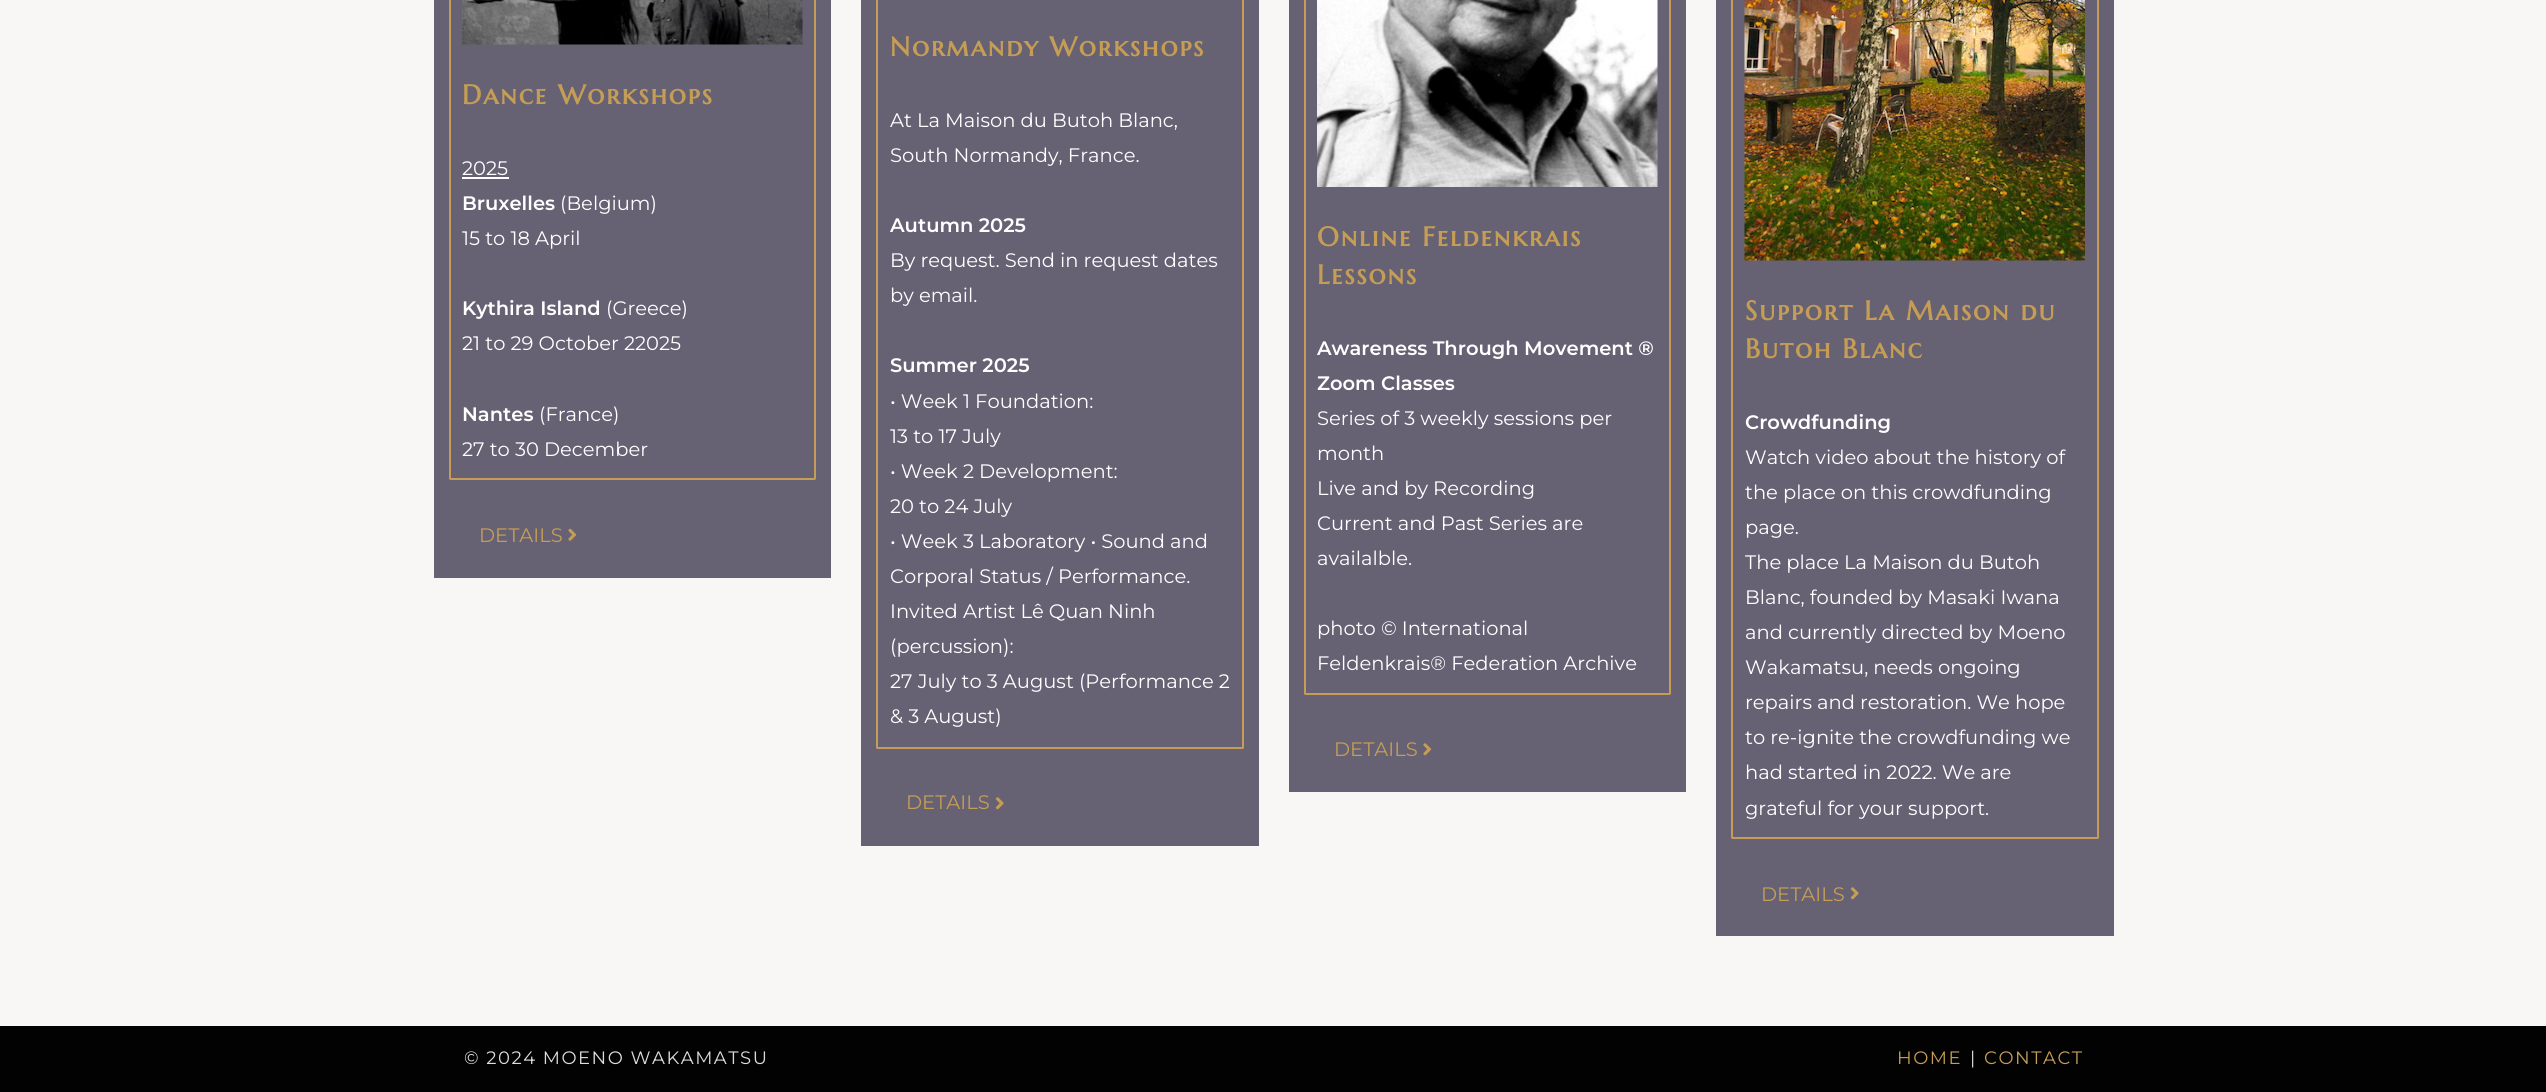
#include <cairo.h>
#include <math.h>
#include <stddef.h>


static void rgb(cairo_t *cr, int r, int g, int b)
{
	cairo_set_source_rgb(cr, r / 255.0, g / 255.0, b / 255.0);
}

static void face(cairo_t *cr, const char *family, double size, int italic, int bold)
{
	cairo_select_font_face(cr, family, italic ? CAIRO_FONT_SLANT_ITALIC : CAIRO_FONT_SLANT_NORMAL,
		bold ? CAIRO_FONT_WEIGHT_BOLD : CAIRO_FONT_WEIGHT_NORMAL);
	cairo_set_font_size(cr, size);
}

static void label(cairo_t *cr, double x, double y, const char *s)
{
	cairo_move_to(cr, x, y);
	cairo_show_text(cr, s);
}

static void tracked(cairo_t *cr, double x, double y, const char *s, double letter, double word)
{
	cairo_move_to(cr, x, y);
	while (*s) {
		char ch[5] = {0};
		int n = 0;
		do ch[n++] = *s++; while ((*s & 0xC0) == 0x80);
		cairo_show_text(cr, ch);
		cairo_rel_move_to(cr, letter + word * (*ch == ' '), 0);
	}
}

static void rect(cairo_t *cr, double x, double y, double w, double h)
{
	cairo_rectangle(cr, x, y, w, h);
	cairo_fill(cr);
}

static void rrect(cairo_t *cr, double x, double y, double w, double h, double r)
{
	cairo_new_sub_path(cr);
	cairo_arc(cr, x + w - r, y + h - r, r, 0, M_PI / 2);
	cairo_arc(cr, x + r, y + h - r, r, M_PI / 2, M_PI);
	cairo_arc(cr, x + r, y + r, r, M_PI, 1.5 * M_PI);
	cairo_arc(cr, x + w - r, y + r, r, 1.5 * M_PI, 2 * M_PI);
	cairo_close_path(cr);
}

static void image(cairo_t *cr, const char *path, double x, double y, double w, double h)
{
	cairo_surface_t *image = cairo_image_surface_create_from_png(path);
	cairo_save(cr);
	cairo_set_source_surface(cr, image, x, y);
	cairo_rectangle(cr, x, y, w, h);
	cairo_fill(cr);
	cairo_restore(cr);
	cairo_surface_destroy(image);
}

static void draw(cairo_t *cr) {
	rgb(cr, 249, 246, 246);
	cairo_paint(cr);
	rgb(cr, 102, 98, 116);
	rect(cr, 434, 0, 397, 578);
	rrect(cr, 450, -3, 365, 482, 0.5);
	rgb(cr, 197, 157, 88);
	cairo_stroke(cr);
	image(cr, "image0.png", 462, 0, 341, 45);
	face(cr, "Marcellus SC", 27, 0, 1);
	rgb(cr, 197, 157, 85);
	tracked(cr, 462, 104, "Dance Workshops", 1.95, 0);
	face(cr, "Montserrat Thin", 19.5, 0, 0);
	rgb(cr, 255, 255, 255);
	label(cr, 462, 175, "2025");
	rect(cr, 462, 177, 47, 2);
	face(cr, "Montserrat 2 Thin", 19.5, 0, 0);
	label(cr, 462, 210, "Bruxelles");
	face(cr, "Montserrat Thin", 19.5, 0, 0);
	label(cr, 560, 210, "(Belgium)");
	label(cr, 462, 245, "15 to 18 April");
	face(cr, "Montserrat 2 Thin", 19.5, 0, 0);
	label(cr, 462, 315, "Kythira Island");
	face(cr, "Montserrat Thin", 19.5, 0, 0);
	label(cr, 606, 315, "(Greece)");
	label(cr, 462, 350, "21 to 29 October 22025");
	face(cr, "Montserrat 2 Thin", 19.5, 0, 0);
	label(cr, 462, 421, "Nantes");
	face(cr, "Montserrat Thin", 19.5, 0, 0);
	label(cr, 539, 421, "(France)");
	label(cr, 462, 456, "27 to 30 December");
	rgb(cr, 197, 157, 85);
	label(cr, 479, 542, "DETAILS");
	image(cr, "image1.png", 568, 528, 9, 13);
	rgb(cr, 102, 98, 116);
	rect(cr, 861, 0, 398, 846);
	rrect(cr, 877, -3, 366, 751, 0.5);
	rgb(cr, 197, 157, 88);
	cairo_stroke(cr);
	face(cr, "Marcellus SC", 27, 0, 1);
	rgb(cr, 197, 157, 85);
	tracked(cr, 890, 56, "Normandy Workshops", 1.95, 0);
	face(cr, "Montserrat Thin", 19.5, 0, 0);
	rgb(cr, 255, 255, 255);
	label(cr, 890, 127, "At La Maison du Butoh Blanc,");
	label(cr, 890, 162, "South Normandy, France.");
	face(cr, "Montserrat 2 Thin", 19.5, 0, 0);
	label(cr, 890, 232, "Autumn 2025");
	face(cr, "Montserrat Thin", 19.5, 0, 0);
	label(cr, 890, 267, "By request. Send in request dates");
	label(cr, 890, 302, "by email.");
	face(cr, "Montserrat 2 Thin", 19.5, 0, 0);
	label(cr, 890, 372, "Summer 2025");
	face(cr, "Montserrat Thin", 19.5, 0, 0);
	label(cr, 890, 408, "• Week 1 Foundation:");
	label(cr, 890, 443, "13 to 17 July");
	label(cr, 890, 478, "• Week 2 Development:");
	label(cr, 890, 513, "20 to 24 July");
	label(cr, 890, 548, "• Week 3 Laboratory • Sound and");
	label(cr, 890, 583, "Corporal Status / Performance.");
	label(cr, 890, 618, "Invited Artist Lê Quan Ninh");
	label(cr, 890, 653, "(percussion):");
	label(cr, 890, 688, "27 July to 3 August (Performance 2");
	label(cr, 890, 723, "& 3 August)");
	rgb(cr, 197, 157, 85);
	label(cr, 906, 809, "DETAILS");
	image(cr, "image2.png", 995, 797, 9, 13);
	rgb(cr, 102, 98, 116);
	rect(cr, 1289, 0, 397, 792);
	rrect(cr, 1305, -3, 365, 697, 0.5);
	rgb(cr, 197, 157, 88);
	cairo_stroke(cr);
	image(cr, "image3.png", 1317, 0, 341, 187);
	face(cr, "Marcellus SC", 27, 0, 1);
	rgb(cr, 197, 157, 85);
	tracked(cr, 1317, 246, "Online Feldenkrais", 1.95, 0);
	tracked(cr, 1317, 284, "Lessons", 1.95, 0);
	face(cr, "Montserrat 2 Thin", 19.5, 0, 0);
	rgb(cr, 255, 255, 255);
	label(cr, 1317, 355, "Awareness Through Movement ®");
	label(cr, 1317, 390, "Zoom Classes");
	face(cr, "Montserrat Thin", 19.5, 0, 0);
	label(cr, 1317, 425, "Series of 3 weekly sessions per");
	label(cr, 1317, 460, "month");
	label(cr, 1317, 495, "Live and by Recording");
	label(cr, 1317, 530, "Current and Past Series are");
	label(cr, 1317, 565, "availalble.");
	label(cr, 1317, 635, "photo © International");
	label(cr, 1317, 670, "Feldenkrais® Federation Archive");
	rgb(cr, 197, 157, 85);
	label(cr, 1334, 756, "DETAILS");
	image(cr, "image4.png", 1423, 743, 9, 13);
	rgb(cr, 102, 98, 116);
	rect(cr, 1716, 0, 398, 936);
	rrect(cr, 1732, -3, 366, 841, 0.5);
	rgb(cr, 197, 157, 88);
	cairo_stroke(cr);
	image(cr, "image5.png", 1744, 0, 341, 261);
	face(cr, "Marcellus SC", 27, 0, 1);
	rgb(cr, 197, 157, 85);
	tracked(cr, 1745, 320, "Support La Maison du", 1.95, 0);
	tracked(cr, 1745, 358, "Butoh Blanc", 1.95, 0);
	face(cr, "Montserrat 2 Thin", 19.5, 0, 0);
	rgb(cr, 255, 255, 255);
	label(cr, 1745, 429, "Crowdfunding");
	face(cr, "Montserrat Thin", 19.5, 0, 0);
	label(cr, 1745, 464, "Watch video about the history of");
	label(cr, 1745, 499, "the place on this crowdfunding");
	label(cr, 1745, 534, "page.");
	label(cr, 1745, 569, "The place La Maison du Butoh");
	label(cr, 1745, 604, "Blanc, founded by Masaki Iwana");
	label(cr, 1745, 639, "and currently directed by Moeno");
	label(cr, 1745, 674, "Wakamatsu, needs ongoing");
	label(cr, 1745, 709, "repairs and restoration. We hope");
	label(cr, 1745, 744, "to re-ignite the crowdfunding we");
	label(cr, 1745, 779, "had started in 2022. We are");
	label(cr, 1745, 815, "grateful for your support.");
	rgb(cr, 197, 157, 85);
	label(cr, 1761, 901, "DETAILS");
	image(cr, "image2.png", 1850, 887, 9, 13);
	rgb(cr, 2, 2, 2);
	rect(cr, 0, 1026, 2546, 66);
	face(cr, "Montserrat Thin", 18, 0, 0);
	rgb(cr, 221, 221, 221);
	tracked(cr, 464, 1064, "© 2024 MOENO WAKAMATSU", 1.5, 0);
	rgb(cr, 197, 157, 85);
	tracked(cr, 1897, 1064, "HOME", 1.5, 0);
	rgb(cr, 221, 221, 221);
	tracked(cr, 1970, 1064, "|", 1.5, 0);
	rgb(cr, 197, 157, 85);
	tracked(cr, 1984, 1064, "CONTACT", 1.5, 0);
}

int main(void) {
	cairo_surface_t *surface = cairo_image_surface_create(CAIRO_FORMAT_RGB24, 2546, 1092);
	cairo_t *cr = cairo_create(surface);
	cairo_font_options_t *options = cairo_font_options_create();
	cairo_font_options_set_hint_metrics(options, CAIRO_HINT_METRICS_OFF);
	cairo_font_options_set_hint_style(options, CAIRO_HINT_STYLE_NONE);
	cairo_set_font_options(cr, options);
	cairo_set_miter_limit(cr, 4);
	draw(cr);
	cairo_surface_write_to_png(surface, "render.png");
	cairo_font_options_destroy(options);
	cairo_destroy(cr);
	cairo_surface_destroy(surface);
	return 0;
}
